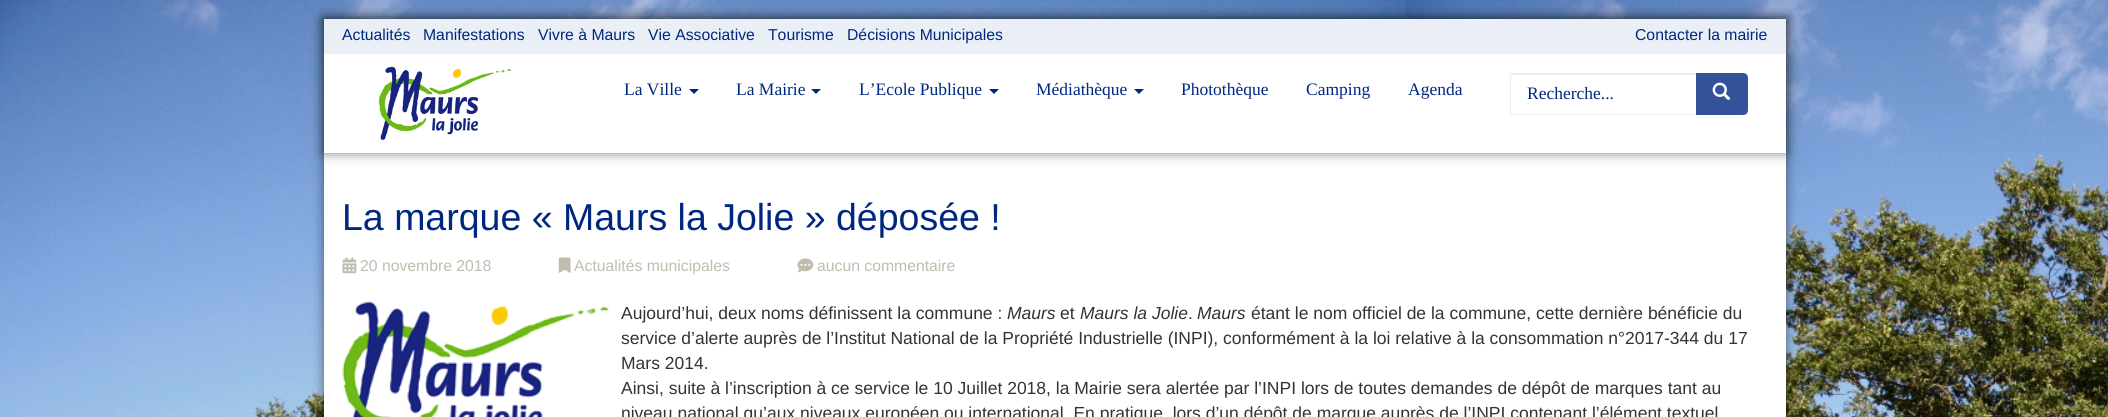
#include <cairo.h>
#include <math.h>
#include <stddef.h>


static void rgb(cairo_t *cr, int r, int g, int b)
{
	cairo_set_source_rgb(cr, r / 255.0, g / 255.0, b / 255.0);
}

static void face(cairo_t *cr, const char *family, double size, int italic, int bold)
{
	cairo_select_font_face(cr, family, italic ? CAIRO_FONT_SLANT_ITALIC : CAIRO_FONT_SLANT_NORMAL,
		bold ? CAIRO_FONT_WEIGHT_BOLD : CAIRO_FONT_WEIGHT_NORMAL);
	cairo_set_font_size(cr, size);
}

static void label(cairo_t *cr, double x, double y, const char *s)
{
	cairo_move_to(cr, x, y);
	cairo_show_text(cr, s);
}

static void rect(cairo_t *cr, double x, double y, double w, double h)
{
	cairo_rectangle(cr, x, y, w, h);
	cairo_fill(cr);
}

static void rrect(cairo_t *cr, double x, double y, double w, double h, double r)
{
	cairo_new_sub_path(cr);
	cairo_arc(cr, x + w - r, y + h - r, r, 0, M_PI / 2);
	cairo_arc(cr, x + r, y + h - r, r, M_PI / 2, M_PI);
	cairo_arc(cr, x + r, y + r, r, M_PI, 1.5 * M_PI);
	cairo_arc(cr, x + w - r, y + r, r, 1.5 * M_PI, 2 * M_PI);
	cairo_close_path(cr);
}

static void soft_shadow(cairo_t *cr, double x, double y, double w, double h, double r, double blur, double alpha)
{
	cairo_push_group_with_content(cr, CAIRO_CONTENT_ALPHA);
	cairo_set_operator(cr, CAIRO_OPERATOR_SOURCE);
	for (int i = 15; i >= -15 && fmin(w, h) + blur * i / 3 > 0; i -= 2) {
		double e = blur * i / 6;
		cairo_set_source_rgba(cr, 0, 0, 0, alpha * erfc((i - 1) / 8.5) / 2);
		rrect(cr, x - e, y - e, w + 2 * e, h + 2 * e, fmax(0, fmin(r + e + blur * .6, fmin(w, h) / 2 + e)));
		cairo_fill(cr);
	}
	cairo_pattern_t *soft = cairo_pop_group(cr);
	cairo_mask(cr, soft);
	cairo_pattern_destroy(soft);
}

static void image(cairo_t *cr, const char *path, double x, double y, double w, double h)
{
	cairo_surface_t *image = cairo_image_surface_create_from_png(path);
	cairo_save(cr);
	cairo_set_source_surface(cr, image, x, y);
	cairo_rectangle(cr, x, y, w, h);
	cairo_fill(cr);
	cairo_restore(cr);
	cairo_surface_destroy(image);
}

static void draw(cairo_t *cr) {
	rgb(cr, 255, 255, 255);
	cairo_paint(cr);
	image(cr, "image0.png", 0, 0, 2108, 417);
	rgb(cr, 0, 0, 0);
	soft_shadow(cr, 324, 19, 1462, 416, 0, 6, 0.5);
	rgb(cr, 255, 255, 255);
	rect(cr, 324, 153, 1462, 264);
	rgb(cr, 0, 0, 0);
	soft_shadow(cr, 324, 19, 1462, 134, 0, 6, 0.5);
	rgb(cr, 255, 255, 255);
	rect(cr, 324, 54, 1462, 99);
	rgb(cr, 234, 238, 245);
	rect(cr, 324, 19, 1462, 35);
	face(cr, "Liberation Sans", 15.75, 0, 0);
	rgb(cr, 0, 39, 127);
	label(cr, 342, 40, "Actualités");
	label(cr, 423, 40, "Manifestations");
	label(cr, 538, 40, "Vivre à Maurs");
	label(cr, 648, 40, "Vie Associative");
	label(cr, 768, 40, "Tourisme");
	label(cr, 847, 40, "Décisions Municipales");
	label(cr, 1635, 40, "Contacter la mairie");
	image(cr, "image1.png", 378, 66, 134, 74);
	face(cr, "Liberation Serif", 17.5, 0, 0);
	label(cr, 624, 95, "La Ville");
	cairo_new_path(cr);
	cairo_move_to(cr, 689, 89);
	cairo_line_to(cr, 699, 89);
	cairo_line_to(cr, 694, 94);
	cairo_close_path(cr);
	cairo_fill(cr);
	label(cr, 736, 95, "La Mairie");
	cairo_new_path(cr);
	cairo_move_to(cr, 811, 89);
	cairo_line_to(cr, 821, 89);
	cairo_line_to(cr, 816, 94);
	cairo_close_path(cr);
	cairo_fill(cr);
	label(cr, 859, 95, "L’Ecole Publique");
	cairo_new_path(cr);
	cairo_move_to(cr, 989, 89);
	cairo_line_to(cr, 999, 89);
	cairo_line_to(cr, 994, 94);
	cairo_close_path(cr);
	cairo_fill(cr);
	label(cr, 1036, 95, "Médiathèque");
	cairo_new_path(cr);
	cairo_move_to(cr, 1134, 89);
	cairo_line_to(cr, 1144, 89);
	cairo_line_to(cr, 1139, 94);
	cairo_close_path(cr);
	cairo_fill(cr);
	label(cr, 1181, 95, "Photothèque");
	label(cr, 1306, 95, "Camping");
	label(cr, 1408, 95, "Agenda");
	rgb(cr, 236, 236, 236);
	rect(cr, 1511, 74, 185, 1);
	cairo_rectangle(cr, 1510.5, 73.5, 187, 41);
	rgb(cr, 234, 238, 245);
	cairo_set_line_width(cr, 1);
	cairo_stroke(cr);
	rgb(cr, 0, 39, 127);
	label(cr, 1527, 99, "Recherche...");
	rgb(cr, 51, 82, 153);
	cairo_new_path(cr);
	cairo_move_to(cr, 1696, 73);
	cairo_line_to(cr, 1743, 73);
	cairo_curve_to(cr, 1746, 73, 1748, 75, 1748, 78);
	cairo_line_to(cr, 1748, 110);
	cairo_curve_to(cr, 1748, 113, 1746, 115, 1743, 115);
	cairo_line_to(cr, 1696, 115);
	cairo_close_path(cr);
	cairo_fill(cr);
	image(cr, "image2.png", 1712, 82, 19, 19);
	face(cr, "Liberation Sans", 37.5, 0, 0);
	rgb(cr, 0, 39, 127);
	label(cr, 342, 230, "La marque « Maurs la Jolie » déposée !");
	image(cr, "image3.png", 342, 257, 15, 17);
	face(cr, "Liberation Sans", 15.75, 0, 0);
	rgb(cr, 191, 188, 176);
	label(cr, 360, 271, "20 novembre 2018");
	image(cr, "image4.png", 558, 257, 13, 16);
	label(cr, 574, 271, "Actualités municipales");
	image(cr, "image5.png", 797, 258, 17, 15);
	label(cr, 817, 271, "aucun commentaire");
	image(cr, "image6.png", 342, 301, 267, 116);
	face(cr, "Liberation Sans", 17.5, 0, 0);
	rgb(cr, 51, 51, 51);
	label(cr, 621, 319, "Aujourd’hui, deux noms définissent la commune :");
	face(cr, "Liberation Sans", 17.5, 1, 0);
	label(cr, 1007, 319, "Maurs");
	face(cr, "Liberation Sans", 17.5, 0, 0);
	label(cr, 1060, 319, "et");
	face(cr, "Liberation Sans", 17.5, 1, 0);
	label(cr, 1080, 319, "Maurs la Jolie");
	face(cr, "Liberation Sans", 17.5, 0, 0);
	label(cr, 1188, 319, ".");
	face(cr, "Liberation Sans", 17.5, 1, 0);
	label(cr, 1197, 319, "Maurs");
	face(cr, "Liberation Sans", 17.5, 0, 0);
	label(cr, 1251, 319, "étant le nom officiel de la commune, cette dernière bénéficie du");
	label(cr, 621, 344, "service d’alerte auprès de l’Institut National de la Propriété Industrielle (INPI), conformément à la loi relative à la consommation n°2017-344 du 17");
	label(cr, 621, 369, "Mars 2014.");
	label(cr, 621, 394, "Ainsi, suite à l’inscription à ce service le 10 Juillet 2018, la Mairie sera alertée par l’INPI lors de toutes demandes de dépôt de marques tant au");
	label(cr, 621, 419, "niveau national qu’aux niveaux européen ou international. En pratique, lors d’un dépôt de marque auprès de l’INPI contenant l’élément textuel");
}

int main(void) {
	cairo_surface_t *surface = cairo_image_surface_create(CAIRO_FORMAT_RGB24, 2108, 417);
	cairo_t *cr = cairo_create(surface);
	cairo_font_options_t *options = cairo_font_options_create();
	cairo_font_options_set_hint_metrics(options, CAIRO_HINT_METRICS_OFF);
	cairo_font_options_set_hint_style(options, CAIRO_HINT_STYLE_NONE);
	cairo_set_font_options(cr, options);
	cairo_set_miter_limit(cr, 4);
	draw(cr);
	cairo_surface_write_to_png(surface, "render.png");
	cairo_font_options_destroy(options);
	cairo_destroy(cr);
	cairo_surface_destroy(surface);
	return 0;
}
